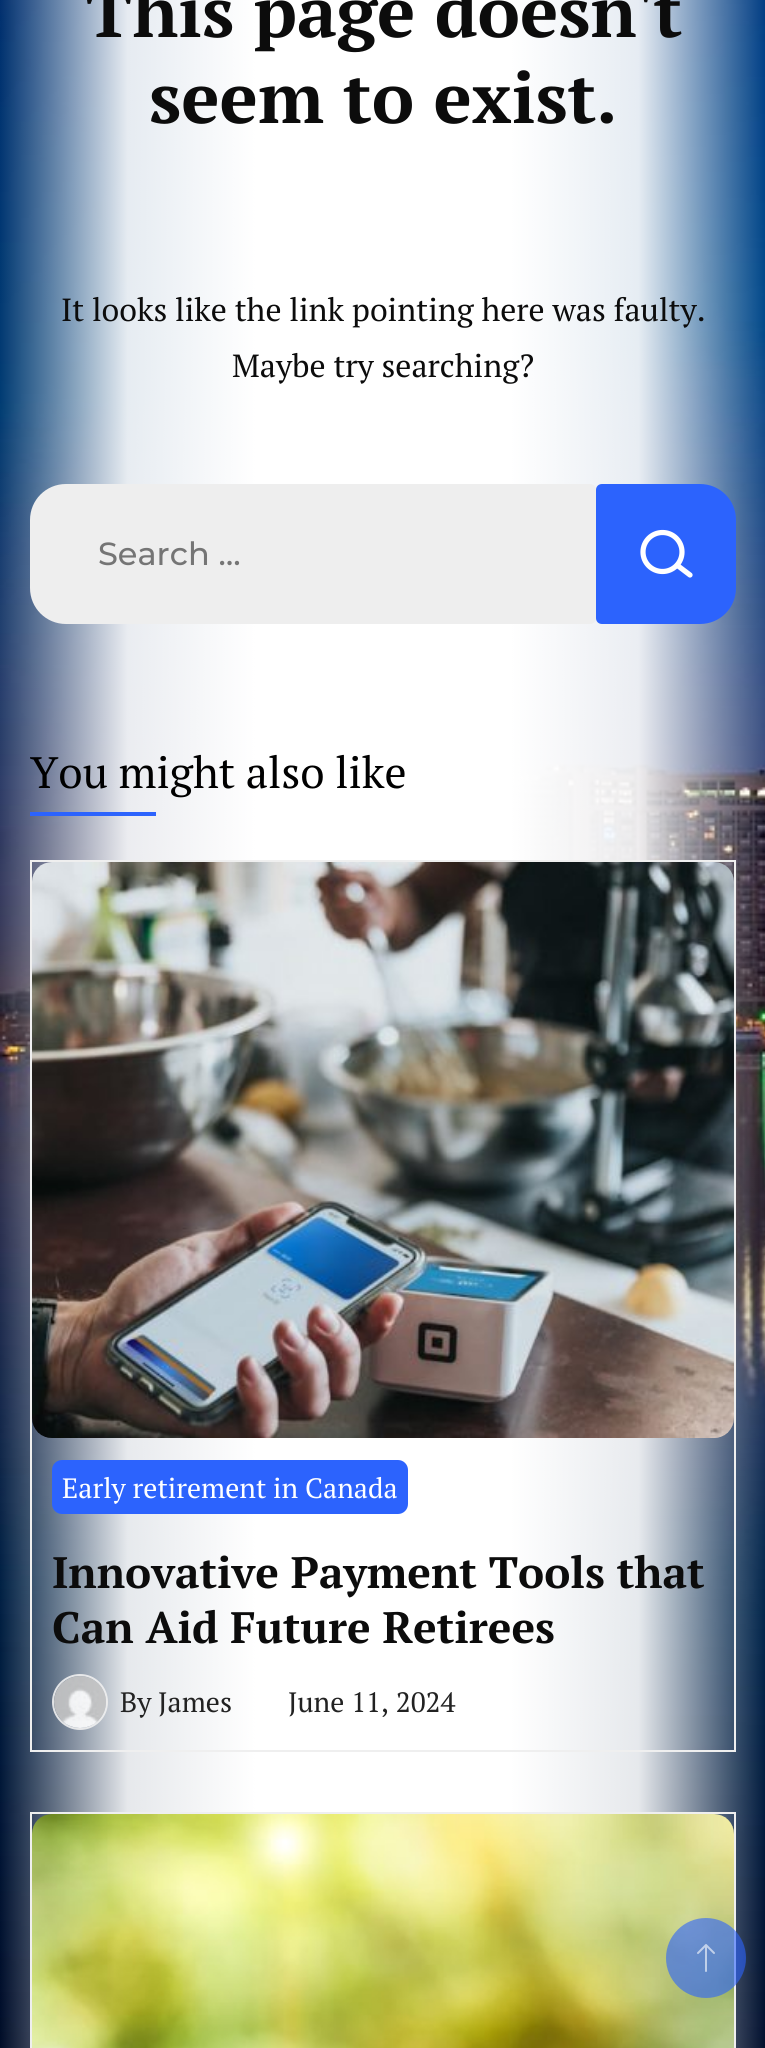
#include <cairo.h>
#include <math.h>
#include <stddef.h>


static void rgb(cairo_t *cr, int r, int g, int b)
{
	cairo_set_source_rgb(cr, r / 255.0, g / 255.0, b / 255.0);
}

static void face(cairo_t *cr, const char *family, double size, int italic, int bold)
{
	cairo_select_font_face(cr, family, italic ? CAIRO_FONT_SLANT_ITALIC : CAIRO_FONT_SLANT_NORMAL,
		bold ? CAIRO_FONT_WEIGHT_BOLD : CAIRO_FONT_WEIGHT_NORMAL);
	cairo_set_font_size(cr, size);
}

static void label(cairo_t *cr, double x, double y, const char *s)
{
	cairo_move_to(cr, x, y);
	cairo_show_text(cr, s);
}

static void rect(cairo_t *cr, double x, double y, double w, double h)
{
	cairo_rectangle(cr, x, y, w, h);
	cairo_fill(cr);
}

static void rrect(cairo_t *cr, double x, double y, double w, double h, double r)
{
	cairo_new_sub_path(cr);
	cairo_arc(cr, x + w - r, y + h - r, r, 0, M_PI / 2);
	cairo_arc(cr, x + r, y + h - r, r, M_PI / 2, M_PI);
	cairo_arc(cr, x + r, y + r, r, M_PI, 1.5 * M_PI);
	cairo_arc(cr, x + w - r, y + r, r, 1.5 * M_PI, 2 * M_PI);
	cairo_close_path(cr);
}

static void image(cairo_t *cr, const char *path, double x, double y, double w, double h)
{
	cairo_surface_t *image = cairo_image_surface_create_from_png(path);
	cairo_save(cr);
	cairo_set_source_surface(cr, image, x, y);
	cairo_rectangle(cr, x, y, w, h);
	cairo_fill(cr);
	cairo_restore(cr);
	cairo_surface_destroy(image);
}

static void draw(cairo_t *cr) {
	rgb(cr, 255, 255, 255);
	cairo_paint(cr);
	image(cr, "image0.png", 0, 0, 765, 2048);
	face(cr, "PT Serif", 71.4, 0, 1);
	rgb(cr, 12, 12, 12);
	label(cr, 85, 37, "This page doesn't");
	label(cr, 149, 123, "seem to exist.");
	face(cr, "PT Serif", 32, 0, 0);
	label(cr, 61, 321, "It looks like the link pointing here was faulty.");
	label(cr, 232, 377, "Maybe try searching?");
	rgb(cr, 238, 238, 238);
	cairo_new_path(cr);
	cairo_move_to(cr, 66, 484);
	cairo_line_to(cr, 590, 484);
	cairo_curve_to(cr, 593.5, 484, 596, 486.5, 596, 490);
	cairo_line_to(cr, 596, 618);
	cairo_curve_to(cr, 596, 621.5, 593.5, 624, 590, 624);
	cairo_line_to(cr, 66, 624);
	cairo_curve_to(cr, 46, 624, 30, 608, 30, 588);
	cairo_line_to(cr, 30, 520);
	cairo_curve_to(cr, 30, 500, 46, 484, 66, 484);
	cairo_close_path(cr);
	cairo_fill(cr);
	face(cr, "Montserrat Medium", 32, 0, 0);
	rgb(cr, 117, 117, 117);
	label(cr, 98, 565, "Search …");
	rgb(cr, 44, 99, 253);
	cairo_new_path(cr);
	cairo_move_to(cr, 602, 484);
	cairo_line_to(cr, 700, 484);
	cairo_curve_to(cr, 720, 484, 736, 500, 736, 520);
	cairo_line_to(cr, 736, 588);
	cairo_curve_to(cr, 736, 608, 720, 624, 700, 624);
	cairo_line_to(cr, 602, 624);
	cairo_curve_to(cr, 598.5, 624, 596, 621.5, 596, 618);
	cairo_line_to(cr, 596, 490);
	cairo_curve_to(cr, 596, 486.5, 598.5, 484, 602, 484);
	cairo_close_path(cr);
	cairo_fill(cr);
	cairo_arc(cr, 662.5, 552, 19.5, 0, 2 * M_PI);
	rgb(cr, 255, 255, 255);
	cairo_set_line_width(cr, 5.2);
	cairo_stroke(cr);
	cairo_new_path(cr);
	cairo_move_to(cr, 677.5, 565.5);
	cairo_line_to(cr, 690, 575);
	cairo_set_line_cap(cr, CAIRO_LINE_CAP_ROUND);
	cairo_set_line_join(cr, CAIRO_LINE_JOIN_ROUND);
	cairo_stroke(cr);
	face(cr, "PT Serif", 44, 0, 0);
	rgb(cr, 0, 0, 0);
	label(cr, 30, 788, "You might also like");
	rgb(cr, 44, 99, 253);
	rect(cr, 30, 812, 126, 4);
	cairo_rectangle(cr, 31, 861, 704, 890);
	rgb(cr, 239, 239, 239);
	cairo_set_line_width(cr, 2);
	cairo_set_line_cap(cr, CAIRO_LINE_CAP_BUTT);
	cairo_set_line_join(cr, CAIRO_LINE_JOIN_MITER);
	cairo_stroke(cr);
	image(cr, "image1.png", 32, 862, 702, 576);
	rgb(cr, 44, 99, 253);
	rrect(cr, 52, 1460, 356, 54, 10);
	cairo_fill(cr);
	face(cr, "PT Serif", 28, 0, 0);
	rgb(cr, 255, 255, 255);
	label(cr, 62, 1498, "Early retirement in Canada");
	face(cr, "PT Serif", 44, 0, 1);
	rgb(cr, 12, 12, 12);
	label(cr, 52, 1588, "Innovative Payment Tools that");
	label(cr, 52, 1643, "Can Aid Future Retirees");
	cairo_new_path(cr);
	cairo_arc(cr, 80, 1702, 27, 0, 2 * M_PI);
	cairo_set_source_rgba(cr, 0.941, 0.941, 0.941, 0.9);
	cairo_stroke(cr);
	image(cr, "image2.png", 54, 1676, 52, 52);
	face(cr, "PT Serif", 28, 0, 0);
	rgb(cr, 34, 34, 34);
	label(cr, 120, 1712, "By");
	label(cr, 158, 1712, "James");
	label(cr, 288, 1712, "June 11, 2024");
	cairo_rectangle(cr, 31, 1813, 704, 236);
	rgb(cr, 239, 239, 239);
	cairo_stroke(cr);
	image(cr, "image3.png", 32, 1814, 702, 234);
	cairo_set_source_rgba(cr, 0.173, 0.388, 0.992, 0.6);
	cairo_arc(cr, 706, 1958, 40, 0, 2 * M_PI);
	cairo_fill(cr);
	image(cr, "image4.png", 697, 1944, 18, 28);
}

int main(void) {
	cairo_surface_t *surface = cairo_image_surface_create(CAIRO_FORMAT_RGB24, 765, 2048);
	cairo_t *cr = cairo_create(surface);
	cairo_font_options_t *options = cairo_font_options_create();
	cairo_font_options_set_hint_metrics(options, CAIRO_HINT_METRICS_OFF);
	cairo_font_options_set_hint_style(options, CAIRO_HINT_STYLE_NONE);
	cairo_set_font_options(cr, options);
	cairo_set_miter_limit(cr, 4);
	draw(cr);
	cairo_surface_write_to_png(surface, "render.png");
	cairo_font_options_destroy(options);
	cairo_destroy(cr);
	cairo_surface_destroy(surface);
	return 0;
}
